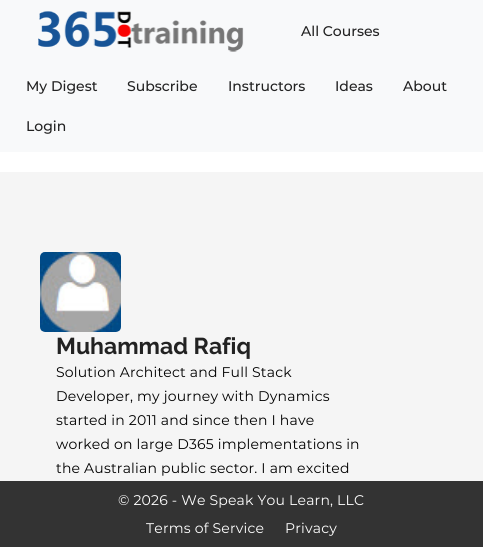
#include <cairo.h>
#include <math.h>
#include <stddef.h>


static void rgb(cairo_t *cr, int r, int g, int b)
{
	cairo_set_source_rgb(cr, r / 255.0, g / 255.0, b / 255.0);
}

static void face(cairo_t *cr, const char *family, double size, int italic, int bold)
{
	cairo_select_font_face(cr, family, italic ? CAIRO_FONT_SLANT_ITALIC : CAIRO_FONT_SLANT_NORMAL,
		bold ? CAIRO_FONT_WEIGHT_BOLD : CAIRO_FONT_WEIGHT_NORMAL);
	cairo_set_font_size(cr, size);
}

static void label(cairo_t *cr, double x, double y, const char *s)
{
	cairo_move_to(cr, x, y);
	cairo_show_text(cr, s);
}

static void tracked(cairo_t *cr, double x, double y, const char *s, double letter, double word)
{
	cairo_move_to(cr, x, y);
	while (*s) {
		char ch[5] = {0};
		int n = 0;
		do ch[n++] = *s++; while ((*s & 0xC0) == 0x80);
		cairo_show_text(cr, ch);
		cairo_rel_move_to(cr, letter + word * (*ch == ' '), 0);
	}
}

static void rect(cairo_t *cr, double x, double y, double w, double h)
{
	cairo_rectangle(cr, x, y, w, h);
	cairo_fill(cr);
}

static void image(cairo_t *cr, const char *path, double x, double y, double w, double h)
{
	cairo_surface_t *image = cairo_image_surface_create_from_png(path);
	cairo_save(cr);
	cairo_set_source_surface(cr, image, x, y);
	cairo_rectangle(cr, x, y, w, h);
	cairo_fill(cr);
	cairo_restore(cr);
	cairo_surface_destroy(image);
}

static void draw(cairo_t *cr) {
	rgb(cr, 255, 255, 255);
	cairo_paint(cr);
	rgb(cr, 248, 249, 250);
	rect(cr, 0, 0, 483, 152);
	image(cr, "image0.png", 38, 11, 206, 41);
	face(cr, "Montserrat Medium", 14, 0, 0);
	rgb(cr, 34, 34, 34);
	label(cr, 301, 36, "All Courses");
	label(cr, 26, 91, "My Digest");
	label(cr, 127, 91, "Subscribe");
	label(cr, 228, 91, "Instructors");
	label(cr, 335, 91, "Ideas");
	label(cr, 403, 91, "About");
	label(cr, 26, 131, "Login");
	rgb(cr, 245, 245, 245);
	rect(cr, 0, 172, 483, 309);
	image(cr, "image1.png", 40, 252, 81, 80);
	face(cr, "Raleway", 23, 0, 1);
	rgb(cr, 34, 34, 34);
	label(cr, 56, 354, "Muhammad Rafiq");
	face(cr, "Montserrat", 14, 0, 0);
	rgb(cr, 0, 0, 0);
	tracked(cr, 56, 377, "Solution Architect and Full Stack", 0.2, 0);
	tracked(cr, 56, 401, "Developer, my journey with Dynamics", 0.2, 0);
	tracked(cr, 56, 425, "started in 2011 and since then I have", 0.2, 0);
	tracked(cr, 56, 449, "worked on large D365 implementations in", 0.2, 0);
	tracked(cr, 56, 473, "the Australian public sector. I am excited", 0.2, 0);
	rgb(cr, 51, 51, 51);
	rect(cr, 0, 481, 483, 66);
	rgb(cr, 255, 255, 255);
	tracked(cr, 118, 505, "© 2026 - We Speak You Learn, LLC", 0.2, 0);
	tracked(cr, 146, 533, "Terms of Service", 0.2, 0);
	tracked(cr, 285, 533, "Privacy", 0.2, 0);
}

int main(void) {
	cairo_surface_t *surface = cairo_image_surface_create(CAIRO_FORMAT_RGB24, 483, 547);
	cairo_t *cr = cairo_create(surface);
	cairo_font_options_t *options = cairo_font_options_create();
	cairo_font_options_set_hint_metrics(options, CAIRO_HINT_METRICS_OFF);
	cairo_font_options_set_hint_style(options, CAIRO_HINT_STYLE_NONE);
	cairo_set_font_options(cr, options);
	cairo_set_miter_limit(cr, 4);
	draw(cr);
	cairo_surface_write_to_png(surface, "render.png");
	cairo_font_options_destroy(options);
	cairo_destroy(cr);
	cairo_surface_destroy(surface);
	return 0;
}
